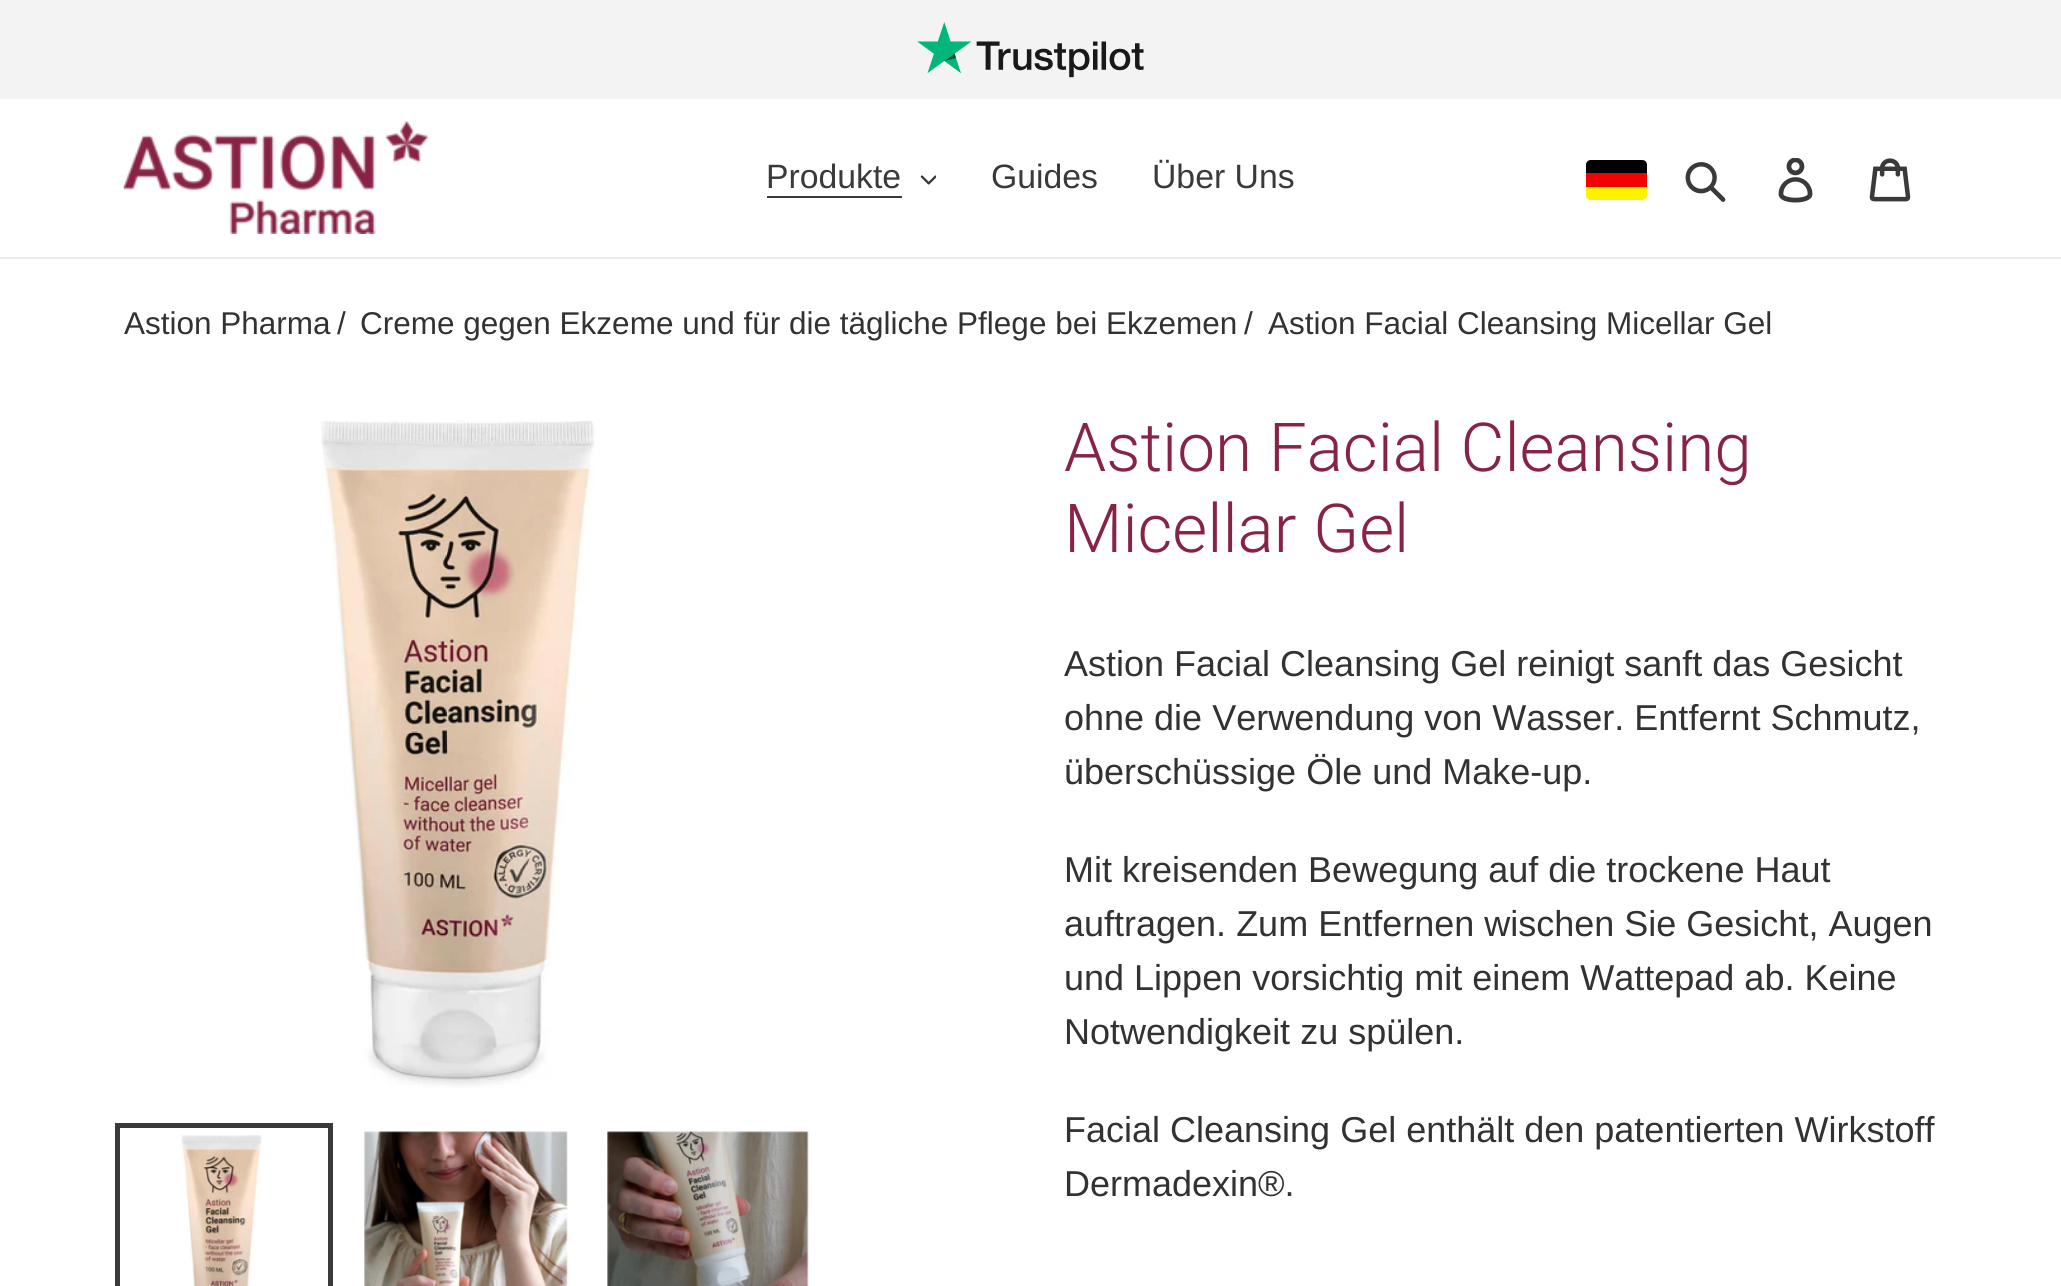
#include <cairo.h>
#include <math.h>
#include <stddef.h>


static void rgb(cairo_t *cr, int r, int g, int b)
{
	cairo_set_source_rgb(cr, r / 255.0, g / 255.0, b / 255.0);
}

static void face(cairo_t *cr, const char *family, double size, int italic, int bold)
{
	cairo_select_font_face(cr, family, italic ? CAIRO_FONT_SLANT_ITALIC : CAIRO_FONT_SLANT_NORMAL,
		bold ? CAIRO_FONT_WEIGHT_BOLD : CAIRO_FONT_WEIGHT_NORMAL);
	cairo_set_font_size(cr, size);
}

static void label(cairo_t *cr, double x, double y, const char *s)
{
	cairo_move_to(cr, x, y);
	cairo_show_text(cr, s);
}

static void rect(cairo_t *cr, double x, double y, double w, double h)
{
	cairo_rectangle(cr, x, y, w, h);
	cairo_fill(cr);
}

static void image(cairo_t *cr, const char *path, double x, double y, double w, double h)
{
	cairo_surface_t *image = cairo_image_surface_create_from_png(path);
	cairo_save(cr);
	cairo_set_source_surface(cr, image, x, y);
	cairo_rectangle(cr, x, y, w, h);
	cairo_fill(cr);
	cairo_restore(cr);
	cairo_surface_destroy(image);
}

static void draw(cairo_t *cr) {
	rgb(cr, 255, 255, 255);
	cairo_paint(cr);
	rgb(cr, 243, 243, 243);
	rect(cr, 0, 0, 2061, 99);
	image(cr, "image0.png", 917, 22, 227, 56);
	rgb(cr, 235, 235, 235);
	rect(cr, 0, 257, 2061, 2);
	image(cr, "image1.png", 123, 121, 305, 113);
	face(cr, "Liberation Sans", 33.75, 0, 0);
	rgb(cr, 58, 58, 58);
	label(cr, 766, 188, "Produkte");
	rect(cr, 767, 196, 135, 2);
	image(cr, "image2.png", 920, 175, 16, 10);
	label(cr, 991, 188, "Guides");
	label(cr, 1152, 188, "Über Uns");
	rgb(cr, 0, 0, 0);
	cairo_new_path(cr);
	cairo_move_to(cr, 1591, 160);
	cairo_line_to(cr, 1642, 160);
	cairo_curve_to(cr, 1645, 160, 1647, 162, 1647, 165);
	cairo_line_to(cr, 1647, 173);
	cairo_line_to(cr, 1586, 173);
	cairo_line_to(cr, 1586, 165);
	cairo_curve_to(cr, 1586, 162, 1588, 160, 1591, 160);
	cairo_close_path(cr);
	cairo_fill(cr);
	rgb(cr, 242, 3, 3);
	rect(cr, 1586, 173, 61, 14);
	rgb(cr, 255, 242, 0);
	cairo_new_path(cr);
	cairo_move_to(cr, 1586, 187);
	cairo_line_to(cr, 1647, 187);
	cairo_line_to(cr, 1647, 195);
	cairo_curve_to(cr, 1647, 198, 1645, 200, 1642, 200);
	cairo_line_to(cr, 1591, 200);
	cairo_curve_to(cr, 1588, 200, 1586, 198, 1586, 195);
	cairo_close_path(cr);
	cairo_fill(cr);
	image(cr, "image3.png", 1685, 162, 41, 40);
	image(cr, "image4.png", 1778, 158, 35, 45);
	image(cr, "image5.png", 1869, 158, 42, 44);
	face(cr, "Liberation Sans", 31.5, 0, 0);
	rgb(cr, 51, 50, 50);
	label(cr, 124, 334, "Astion Pharma");
	label(cr, 337, 334, "/");
	label(cr, 360, 334, "Creme gegen Ekzeme und für die tägliche Pflege bei Ekzemen");
	label(cr, 1244, 334, "/");
	label(cr, 1268, 334, "Astion Facial Cleansing Micellar Gel");
	image(cr, "image6.png", 321, 420, 274, 668);
	cairo_rectangle(cr, 117.5, 1125.5, 213, 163);
	rgb(cr, 58, 58, 58);
	cairo_set_line_width(cr, 5);
	cairo_stroke(cr);
	image(cr, "image7.png", 181, 1135, 81, 151);
	image(cr, "image8.png", 364, 1131, 204, 155);
	image(cr, "image9.png", 607, 1131, 202, 155);
	face(cr, "Roboto Light", 67.5, 0, 0);
	rgb(cr, 135, 35, 69);
	label(cr, 1064, 471, "Astion Facial Cleansing");
	label(cr, 1064, 552, "Micellar Gel");
	face(cr, "Liberation Sans", 36, 0, 0);
	rgb(cr, 51, 50, 50);
	label(cr, 1064, 676, "Astion Facial Cleansing Gel reinigt sanft das Gesicht");
	label(cr, 1064, 730, "ohne die Verwendung von Wasser. Entfernt Schmutz,");
	label(cr, 1064, 784, "überschüssige Öle und Make-up.");
	label(cr, 1064, 882, "Mit kreisenden Bewegung auf die trockene Haut");
	label(cr, 1064, 936, "auftragen. Zum Entfernen wischen Sie Gesicht, Augen");
	label(cr, 1064, 990, "und Lippen vorsichtig mit einem Wattepad ab. Keine");
	label(cr, 1064, 1044, "Notwendigkeit zu spülen.");
	label(cr, 1064, 1142, "Facial Cleansing Gel enthält den patentierten Wirkstoff");
	label(cr, 1064, 1196, "Dermadexin®.");
}

int main(void) {
	cairo_surface_t *surface = cairo_image_surface_create(CAIRO_FORMAT_RGB24, 2061, 1286);
	cairo_t *cr = cairo_create(surface);
	cairo_font_options_t *options = cairo_font_options_create();
	cairo_font_options_set_hint_metrics(options, CAIRO_HINT_METRICS_OFF);
	cairo_font_options_set_hint_style(options, CAIRO_HINT_STYLE_NONE);
	cairo_set_font_options(cr, options);
	cairo_set_miter_limit(cr, 4);
	draw(cr);
	cairo_surface_write_to_png(surface, "render.png");
	cairo_font_options_destroy(options);
	cairo_destroy(cr);
	cairo_surface_destroy(surface);
	return 0;
}
